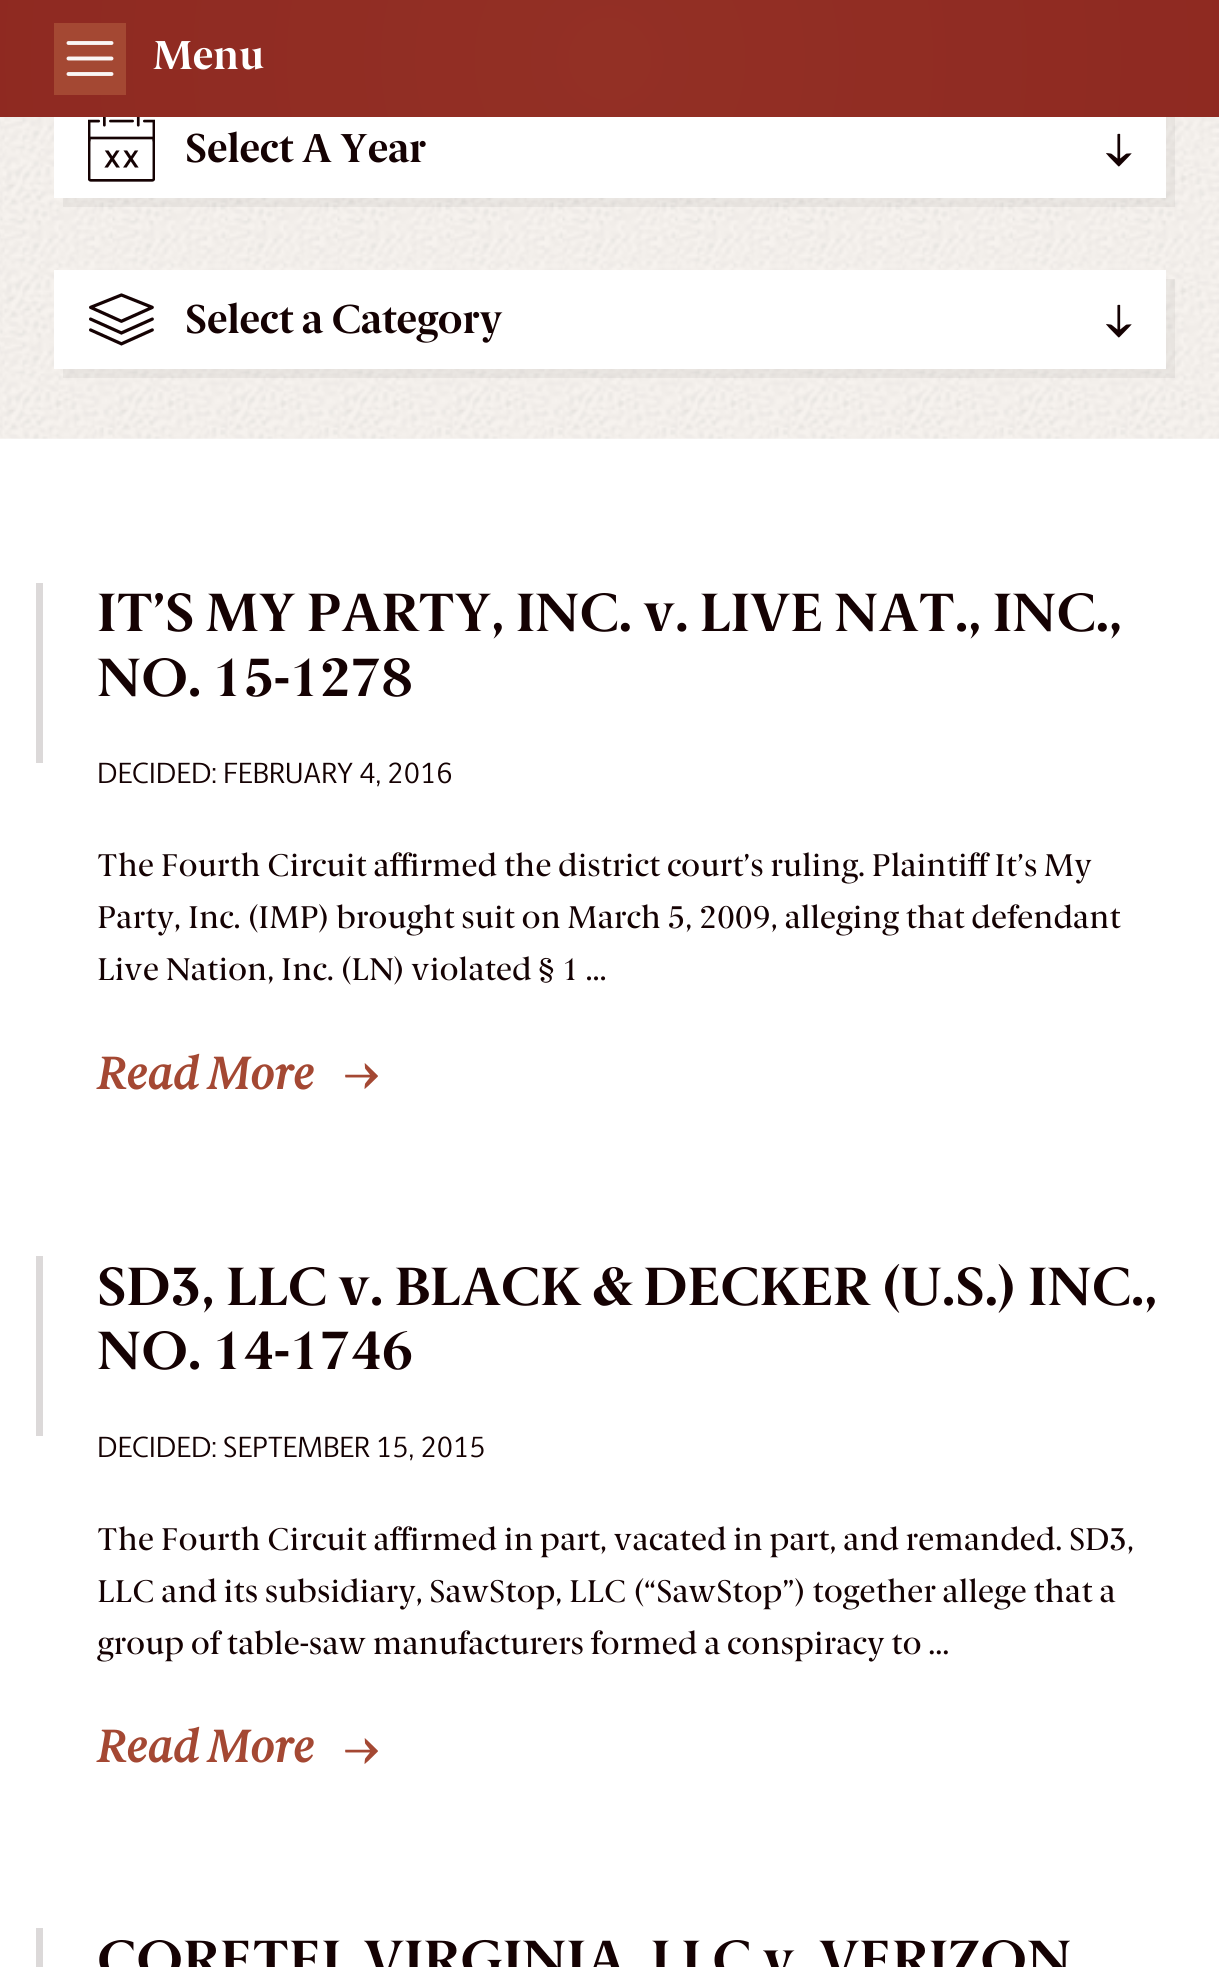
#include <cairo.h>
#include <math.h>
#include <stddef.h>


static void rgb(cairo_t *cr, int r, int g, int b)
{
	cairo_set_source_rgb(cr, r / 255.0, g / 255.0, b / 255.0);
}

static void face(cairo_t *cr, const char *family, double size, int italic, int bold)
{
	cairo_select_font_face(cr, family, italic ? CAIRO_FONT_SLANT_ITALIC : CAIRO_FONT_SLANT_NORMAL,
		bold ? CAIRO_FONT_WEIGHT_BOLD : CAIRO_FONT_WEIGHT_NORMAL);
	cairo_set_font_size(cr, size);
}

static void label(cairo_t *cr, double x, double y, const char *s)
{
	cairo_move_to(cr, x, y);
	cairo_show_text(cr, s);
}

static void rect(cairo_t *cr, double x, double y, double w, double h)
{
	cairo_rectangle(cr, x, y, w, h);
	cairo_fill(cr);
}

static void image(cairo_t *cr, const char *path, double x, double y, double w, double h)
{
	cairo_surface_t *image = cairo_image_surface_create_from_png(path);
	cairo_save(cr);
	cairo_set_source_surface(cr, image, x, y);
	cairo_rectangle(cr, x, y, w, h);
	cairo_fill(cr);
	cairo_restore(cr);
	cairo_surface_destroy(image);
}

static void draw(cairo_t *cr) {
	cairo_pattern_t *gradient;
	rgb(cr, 255, 255, 255);
	cairo_paint(cr);
	image(cr, "image0.png", 0, 117, 1219, 322);
	cairo_set_source_rgba(cr, 0, 0, 0, 0.05);
	cairo_new_path(cr);
	cairo_move_to(cr, 63, 198);
	cairo_line_to(cr, 63, 207);
	cairo_line_to(cr, 1175, 207);
	cairo_line_to(cr, 1175, 108);
	cairo_line_to(cr, 1166, 108);
	cairo_line_to(cr, 1166, 198);
	cairo_close_path(cr);
	cairo_fill(cr);
	gradient = cairo_pattern_create_radial(610, 59, 0, 610, 59, 4500);
	cairo_pattern_add_color_stop_rgba(gradient, 0, 0.576, 0.188, 0.145, 1);
	cairo_pattern_add_color_stop_rgba(gradient, 1, 0.451, 0, 0.039, 1);
	cairo_set_source(cr, gradient);
	cairo_pattern_destroy(gradient);
	rect(cr, 0, 0, 1219, 117);
	rgb(cr, 164, 72, 51);
	rect(cr, 54, 23, 72, 72);
	cairo_new_path(cr);
	cairo_move_to(cr, 68.5, 43);
	cairo_line_to(cr, 111.5, 43);
	cairo_move_to(cr, 68.5, 58.5);
	cairo_line_to(cr, 111.5, 58.5);
	cairo_move_to(cr, 68.5, 74);
	cairo_line_to(cr, 111.5, 74);
	rgb(cr, 250, 246, 245);
	cairo_set_line_width(cr, 3.9);
	cairo_set_line_cap(cr, CAIRO_LINE_CAP_ROUND);
	cairo_stroke(cr);
	face(cr, "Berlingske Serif", 40.5, 0, 1);
	rgb(cr, 255, 255, 255);
	label(cr, 153, 69, "Menu");
	rect(cr, 54, 117, 1112, 81);
	image(cr, "image1.png", 88, 117, 67, 65);
	rgb(cr, 21, 2, 3);
	label(cr, 185, 162, "Select A Year");
	image(cr, "image2.png", 1106, 133, 26, 34);
	cairo_set_source_rgba(cr, 0, 0, 0, 0.05);
	cairo_new_path(cr);
	cairo_move_to(cr, 63, 369);
	cairo_line_to(cr, 63, 378);
	cairo_line_to(cr, 1175, 378);
	cairo_line_to(cr, 1175, 279);
	cairo_line_to(cr, 1166, 279);
	cairo_line_to(cr, 1166, 369);
	cairo_close_path(cr);
	cairo_fill(cr);
	rgb(cr, 255, 255, 255);
	rect(cr, 54, 270, 1112, 99);
	image(cr, "image3.png", 89, 293, 65, 53);
	rgb(cr, 21, 2, 3);
	label(cr, 185, 333, "Select a Category");
	image(cr, "image2.png", 1106, 304, 26, 34);
	rgb(cr, 220, 217, 217);
	rect(cr, 36, 583, 7, 180);
	face(cr, "Berlingske Serif", 54, 0, 1);
	rgb(cr, 21, 2, 3);
	label(cr, 97, 631, "IT’S MY PARTY, INC. v. LIVE NAT., INC.,");
	label(cr, 97, 696, "NO. 15-1278");
	face(cr, "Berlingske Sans", 29.25, 0, 0);
	label(cr, 97, 783, "DECIDED: FEBRUARY 4, 2016");
	face(cr, "Berlingske Serif Medium", 31.5, 0, 0);
	label(cr, 97, 876, "The Fourth Circuit affirmed the district court’s ruling. Plaintiff It’s My");
	label(cr, 97, 928, "Party, Inc. (IMP) brought suit on March 5, 2009, alleging that defendant");
	label(cr, 97, 980, "Live Nation, Inc. (LN) violated § 1 …");
	face(cr, "Berlingske Serif", 45, 1, 1);
	rgb(cr, 164, 72, 51);
	label(cr, 97, 1089, "Read More");
	image(cr, "image4.png", 345, 1063, 33, 26);
	rgb(cr, 220, 217, 217);
	rect(cr, 36, 1256, 7, 180);
	face(cr, "Berlingske Serif", 54, 0, 1);
	rgb(cr, 21, 2, 3);
	label(cr, 97, 1305, "SD3, LLC v. BLACK & DECKER (U.S.) INC.,");
	label(cr, 97, 1369, "NO. 14-1746");
	face(cr, "Berlingske Sans", 29.25, 0, 0);
	label(cr, 97, 1457, "DECIDED: SEPTEMBER 15, 2015");
	face(cr, "Berlingske Serif Medium", 31.5, 0, 0);
	label(cr, 97, 1550, "The Fourth Circuit affirmed in part, vacated in part, and remanded. SD3,");
	label(cr, 97, 1602, "LLC and its subsidiary, SawStop, LLC (“SawStop”) together allege that a");
	label(cr, 97, 1654, "group of table-saw manufacturers formed a conspiracy to …");
	face(cr, "Berlingske Serif", 45, 1, 1);
	rgb(cr, 164, 72, 51);
	label(cr, 97, 1762, "Read More");
	image(cr, "image4.png", 345, 1738, 33, 26);
	rgb(cr, 220, 217, 217);
	rect(cr, 36, 1928, 7, 39);
	face(cr, "Berlingske Serif", 54, 0, 1);
	rgb(cr, 21, 2, 3);
	label(cr, 97, 1978, "CORETEL VIRGINIA, LLC v. VERIZON");
}

int main(void) {
	cairo_surface_t *surface = cairo_image_surface_create(CAIRO_FORMAT_RGB24, 1219, 1967);
	cairo_t *cr = cairo_create(surface);
	cairo_font_options_t *options = cairo_font_options_create();
	cairo_font_options_set_hint_metrics(options, CAIRO_HINT_METRICS_OFF);
	cairo_font_options_set_hint_style(options, CAIRO_HINT_STYLE_NONE);
	cairo_set_font_options(cr, options);
	cairo_set_miter_limit(cr, 4);
	draw(cr);
	cairo_surface_write_to_png(surface, "render.png");
	cairo_font_options_destroy(options);
	cairo_destroy(cr);
	cairo_surface_destroy(surface);
	return 0;
}
